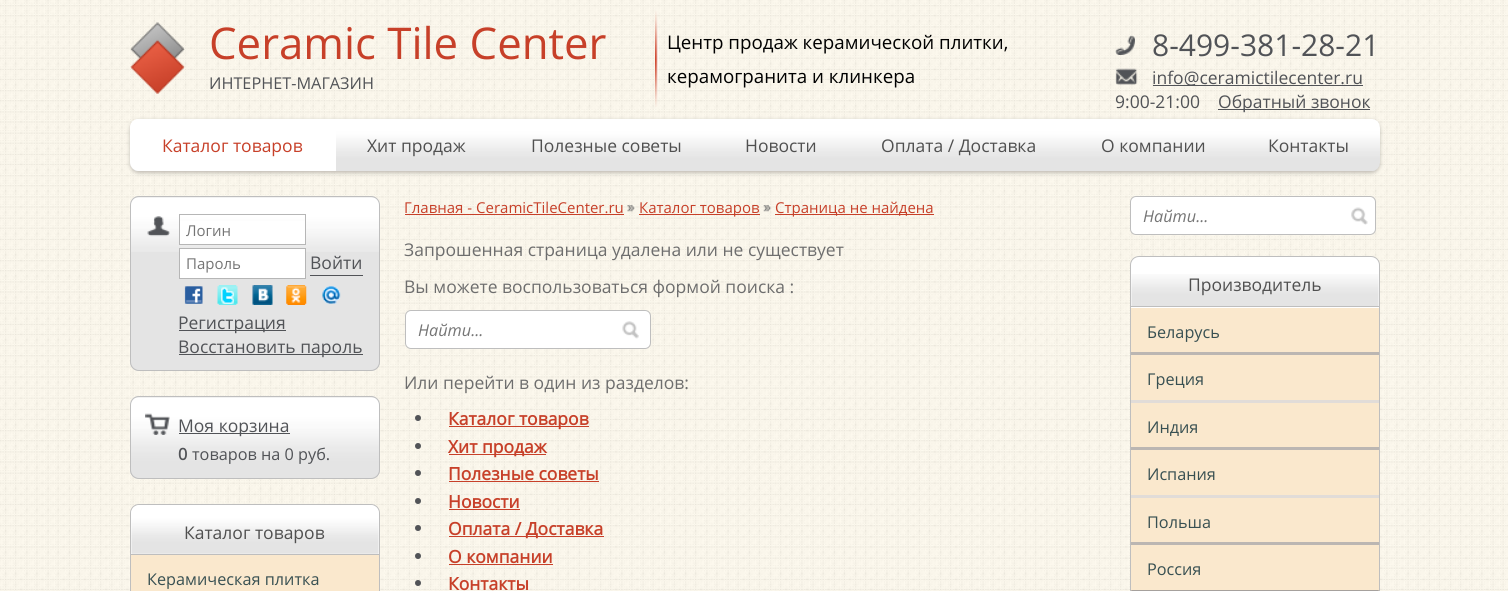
#include <cairo.h>
#include <math.h>
#include <stddef.h>


static void rgb(cairo_t *cr, int r, int g, int b)
{
	cairo_set_source_rgb(cr, r / 255.0, g / 255.0, b / 255.0);
}

static void face(cairo_t *cr, const char *family, double size, int italic, int bold)
{
	cairo_select_font_face(cr, family, italic ? CAIRO_FONT_SLANT_ITALIC : CAIRO_FONT_SLANT_NORMAL,
		bold ? CAIRO_FONT_WEIGHT_BOLD : CAIRO_FONT_WEIGHT_NORMAL);
	cairo_set_font_size(cr, size);
}

static void label(cairo_t *cr, double x, double y, const char *s)
{
	cairo_move_to(cr, x, y);
	cairo_show_text(cr, s);
}

static void rect(cairo_t *cr, double x, double y, double w, double h)
{
	cairo_rectangle(cr, x, y, w, h);
	cairo_fill(cr);
}

static void rrect(cairo_t *cr, double x, double y, double w, double h, double r)
{
	cairo_new_sub_path(cr);
	cairo_arc(cr, x + w - r, y + h - r, r, 0, M_PI / 2);
	cairo_arc(cr, x + r, y + h - r, r, M_PI / 2, M_PI);
	cairo_arc(cr, x + r, y + r, r, M_PI, 1.5 * M_PI);
	cairo_arc(cr, x + w - r, y + r, r, 1.5 * M_PI, 2 * M_PI);
	cairo_close_path(cr);
}

static void soft_shadow(cairo_t *cr, double x, double y, double w, double h, double r, double blur, double alpha)
{
	cairo_push_group_with_content(cr, CAIRO_CONTENT_ALPHA);
	cairo_set_operator(cr, CAIRO_OPERATOR_SOURCE);
	for (int i = 15; i >= -15 && fmin(w, h) + blur * i / 3 > 0; i -= 2) {
		double e = blur * i / 6;
		cairo_set_source_rgba(cr, 0, 0, 0, alpha * erfc((i - 1) / 8.5) / 2);
		rrect(cr, x - e, y - e, w + 2 * e, h + 2 * e, fmax(0, fmin(r + e + blur * .6, fmin(w, h) / 2 + e)));
		cairo_fill(cr);
	}
	cairo_pattern_t *soft = cairo_pop_group(cr);
	cairo_mask(cr, soft);
	cairo_pattern_destroy(soft);
}

static void image(cairo_t *cr, const char *path, double x, double y, double w, double h)
{
	cairo_surface_t *image = cairo_image_surface_create_from_png(path);
	cairo_save(cr);
	cairo_set_source_surface(cr, image, x, y);
	cairo_rectangle(cr, x, y, w, h);
	cairo_fill(cr);
	cairo_restore(cr);
	cairo_surface_destroy(image);
}

static void draw(cairo_t *cr) {
	rgb(cr, 255, 255, 255);
	cairo_paint(cr);
	image(cr, "image0.png", 0, 0, 1508, 591);
	image(cr, "image1.png", 130, 22, 55, 72);
	face(cr, "Open Sans", 43.75, 0, 0);
	rgb(cr, 199, 64, 41);
	label(cr, 209, 59, "Ceramic Tile Center");
	face(cr, "Open Sans", 16.25, 0, 0);
	rgb(cr, 81, 83, 87);
	label(cr, 209, 89, "ИНТЕРНЕТ-МАГАЗИН");
	image(cr, "image2.png", 655, 11, 4, 96);
	face(cr, "Open Sans", 18.75, 0, 0);
	rgb(cr, 0, 0, 0);
	label(cr, 667, 49, "Центр продаж керамической плитки,");
	label(cr, 667, 83, "керамогранита и клинкера");
	image(cr, "image3.png", 1115, 35, 20, 20);
	face(cr, "Open Sans", 30, 0, 0);
	rgb(cr, 81, 83, 87);
	label(cr, 1152, 56, "8-499-381-28-21");
	image(cr, "image4.png", 1115, 68, 23, 17);
	rect(cr, 1153, 85, 210, 1);
	face(cr, "Open Sans", 17.5, 0, 0);
	label(cr, 1152, 84, "info@ceramictilecenter.ru");
	label(cr, 1115, 108, "9:00-21:00");
	rect(cr, 1218, 109, 152, 1);
	label(cr, 1218, 108, "Обратный звонок");
	rgb(cr, 193, 189, 181);
	soft_shadow(cr, 130, 120, 1250, 53, 9, 2, 1);
	image(cr, "image5.png", 130, 119, 1250, 52);
	rgb(cr, 255, 255, 255);
	cairo_new_path(cr);
	cairo_move_to(cr, 139, 119);
	cairo_line_to(cr, 336, 119);
	cairo_line_to(cr, 336, 171);
	cairo_line_to(cr, 139, 171);
	cairo_curve_to(cr, 134, 171, 130, 167, 130, 162);
	cairo_line_to(cr, 130, 128);
	cairo_curve_to(cr, 130, 123, 134, 119, 139, 119);
	cairo_close_path(cr);
	cairo_fill(cr);
	rgb(cr, 199, 64, 41);
	label(cr, 162, 152, "Каталог товаров");
	rgb(cr, 80, 80, 80);
	label(cr, 367, 152, "Хит продаж");
	label(cr, 531, 152, "Полезные советы");
	label(cr, 745, 152, "Новости");
	label(cr, 881, 152, "Оплата / Доставка");
	label(cr, 1101, 152, "О компании");
	label(cr, 1268, 152, "Контакты");
	rgb(cr, 228, 228, 228);
	rrect(cr, 130, 196, 250, 175, 9);
	cairo_fill(cr);
	image(cr, "image6.png", 130, 197, 250, 55);
	rrect(cr, 130.5, 196.5, 249, 174, 8.5);
	rgb(cr, 190, 190, 190);
	cairo_set_line_width(cr, 1);
	cairo_stroke(cr);
	image(cr, "image7.png", 147, 216, 23, 21);
	rgb(cr, 255, 255, 255);
	rect(cr, 180, 221, 125, 23);
	cairo_rectangle(cr, 179.5, 214.5, 126, 30);
	rgb(cr, 182, 182, 182);
	cairo_stroke(cr);
	face(cr, "Open Sans", 15, 0, 0);
	rgb(cr, 117, 117, 117);
	label(cr, 186, 236, "Логин");
	rgb(cr, 255, 255, 255);
	cairo_rectangle(cr, 179.5, 248.5, 126, 30);
	cairo_fill_preserve(cr);
	rgb(cr, 182, 182, 182);
	cairo_stroke(cr);
	rgb(cr, 117, 117, 117);
	label(cr, 186, 269, "Пароль");
	rgb(cr, 81, 83, 87);
	rect(cr, 310, 275, 53, 1);
	face(cr, "Open Sans", 17.5, 0, 0);
	label(cr, 310, 269, "Войти");
	image(cr, "image8.png", 184, 286, 19, 18);
	image(cr, "image9.png", 217, 285, 21, 20);
	image(cr, "image10.png", 252, 285, 21, 20);
	image(cr, "image11.png", 286, 285, 21, 20);
	image(cr, "image12.png", 322, 286, 19, 18);
	rect(cr, 179, 330, 107, 1);
	label(cr, 178, 329, "Регистрация");
	rect(cr, 179, 354, 184, 1);
	label(cr, 178, 353, "Восстановить пароль");
	rgb(cr, 228, 228, 228);
	rrect(cr, 130, 396, 250, 83, 9);
	cairo_fill(cr);
	image(cr, "image13.png", 130, 397, 250, 80);
	rrect(cr, 130.5, 396.5, 249, 82, 8.5);
	rgb(cr, 190, 190, 190);
	cairo_stroke(cr);
	image(cr, "image14.png", 145, 413, 25, 22);
	rgb(cr, 81, 83, 87);
	rect(cr, 179, 433, 111, 1);
	label(cr, 178, 432, "Моя корзина");
	face(cr, "Open Sans", 16.25, 0, 1);
	label(cr, 178, 460, "0");
	face(cr, "Open Sans", 16.25, 0, 0);
	label(cr, 192, 460, "товаров на 0 руб.");
	rgb(cr, 255, 255, 255);
	rrect(cr, 130.5, 504.5, 249, 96, 8.5);
	cairo_fill_preserve(cr);
	rgb(cr, 190, 190, 190);
	cairo_stroke(cr);
	image(cr, "image15.png", 131, 505, 248, 49);
	rect(cr, 131, 554, 248, 1);
	face(cr, "Open Sans", 17.5, 0, 0);
	rgb(cr, 80, 80, 80);
	label(cr, 184, 539, "Каталог товаров");
	rgb(cr, 250, 232, 205);
	rect(cr, 131, 555, 248, 36);
	face(cr, "Open Sans", 16.25, 0, 0);
	rgb(cr, 56, 80, 82);
	label(cr, 147, 585, "Керамическая плитка");
	image(cr, "image16.png", 627, 205, 8, 7);
	face(cr, "Open Sans", 15, 0, 0);
	rgb(cr, 199, 64, 41);
	label(cr, 404, 213, "Главная - CeramicTileCenter.ru");
	rect(cr, 405, 214, 219, 1);
	image(cr, "image17.png", 763, 205, 9, 7);
	rect(cr, 639, 214, 121, 1);
	label(cr, 639, 213, "Каталог товаров");
	rect(cr, 775, 214, 159, 1);
	label(cr, 775, 213, "Страница не найдена");
	face(cr, "Open Sans", 17.5, 0, 0);
	rgb(cr, 110, 110, 110);
	label(cr, 404, 256, "Запрошенная страница удалена или не существует");
	label(cr, 404, 293, "Вы можете воспользоваться формой поиска :");
	rgb(cr, 255, 255, 255);
	rrect(cr, 405.5, 310.5, 245, 38, 5.5);
	cairo_fill_preserve(cr);
	rgb(cr, 190, 190, 190);
	cairo_stroke(cr);
	face(cr, "Open Sans", 16.25, 1, 0);
	rgb(cr, 117, 117, 117);
	label(cr, 418, 336, "Найти...");
	image(cr, "image18.png", 622, 321, 17, 18);
	face(cr, "Open Sans", 17.5, 0, 0);
	rgb(cr, 110, 110, 110);
	label(cr, 404, 389, "Или перейти в один из разделов:");
	rgb(cr, 81, 83, 87);
	cairo_new_path(cr);
	cairo_arc(cr, 418, 418, 3, 0, 2 * M_PI);
	cairo_fill(cr);
	rgb(cr, 199, 64, 41);
	rect(cr, 449, 426, 140, 1);
	face(cr, "Open Sans", 17.5, 0, 1);
	label(cr, 448, 425, "Каталог товаров");
	rgb(cr, 81, 83, 87);
	cairo_new_path(cr);
	cairo_arc(cr, 418, 446, 3, 0, 2 * M_PI);
	cairo_fill(cr);
	rgb(cr, 199, 64, 41);
	rect(cr, 449, 454, 97, 1);
	label(cr, 448, 453, "Хит продаж");
	rgb(cr, 81, 83, 87);
	cairo_new_path(cr);
	cairo_arc(cr, 418, 473, 3, 0, 2 * M_PI);
	cairo_fill(cr);
	rgb(cr, 199, 64, 41);
	label(cr, 448, 480, "Полезные советы");
	rect(cr, 449, 481, 150, 1);
	rgb(cr, 81, 83, 87);
	cairo_new_path(cr);
	cairo_arc(cr, 418, 501, 3, 0, 2 * M_PI);
	cairo_fill(cr);
	rgb(cr, 199, 64, 41);
	label(cr, 448, 508, "Новости");
	rect(cr, 449, 509, 71, 1);
	rgb(cr, 81, 83, 87);
	cairo_new_path(cr);
	cairo_arc(cr, 418, 528, 3, 0, 2 * M_PI);
	cairo_fill(cr);
	rgb(cr, 199, 64, 41);
	rect(cr, 449, 536, 155, 1);
	label(cr, 448, 535, "Оплата / Доставка");
	rgb(cr, 81, 83, 87);
	cairo_new_path(cr);
	cairo_arc(cr, 418, 556, 3, 0, 2 * M_PI);
	cairo_fill(cr);
	rgb(cr, 199, 64, 41);
	label(cr, 448, 563, "О компании");
	rect(cr, 449, 564, 104, 1);
	rgb(cr, 81, 83, 87);
	cairo_new_path(cr);
	cairo_arc(cr, 418, 583, 3, 0, 2 * M_PI);
	cairo_fill(cr);
	rgb(cr, 199, 64, 41);
	label(cr, 448, 590, "Контакты");
	rgb(cr, 255, 255, 255);
	rrect(cr, 1130.5, 196.5, 245, 38, 5.5);
	cairo_fill_preserve(cr);
	rgb(cr, 190, 190, 190);
	cairo_stroke(cr);
	face(cr, "Open Sans", 16.25, 1, 0);
	rgb(cr, 117, 117, 117);
	label(cr, 1143, 222, "Найти...");
	image(cr, "image19.png", 1351, 207, 17, 18);
	rgb(cr, 255, 255, 255);
	rrect(cr, 1130.5, 256.5, 249, 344, 8.5);
	cairo_fill_preserve(cr);
	rgb(cr, 190, 190, 190);
	cairo_stroke(cr);
	image(cr, "image20.png", 1131, 274, 248, 32);
	rect(cr, 1131, 306, 248, 1);
	face(cr, "Open Sans", 17.5, 0, 0);
	rgb(cr, 80, 80, 80);
	label(cr, 1188, 291, "Производитель");
	rgb(cr, 250, 232, 205);
	rect(cr, 1131, 308, 248, 44);
	rgb(cr, 187, 182, 178);
	rect(cr, 1131, 352, 248, 3);
	face(cr, "Open Sans", 16.25, 0, 0);
	rgb(cr, 56, 80, 82);
	label(cr, 1147, 338, "Беларусь");
	rgb(cr, 250, 232, 205);
	rect(cr, 1131, 355, 248, 45);
	rgb(cr, 225, 220, 216);
	rect(cr, 1131, 400, 248, 3);
	rgb(cr, 56, 80, 82);
	label(cr, 1147, 385, "Греция");
	rgb(cr, 250, 232, 205);
	rect(cr, 1131, 403, 248, 44);
	rgb(cr, 187, 182, 178);
	rect(cr, 1131, 447, 248, 3);
	rgb(cr, 56, 80, 82);
	label(cr, 1147, 433, "Индия");
	rgb(cr, 250, 232, 205);
	rect(cr, 1131, 450, 248, 45);
	rgb(cr, 225, 220, 216);
	rect(cr, 1131, 495, 248, 3);
	rgb(cr, 56, 80, 82);
	label(cr, 1147, 480, "Испания");
	rgb(cr, 250, 232, 205);
	rect(cr, 1131, 498, 248, 44);
	rgb(cr, 187, 182, 178);
	rect(cr, 1131, 542, 248, 3);
	rgb(cr, 56, 80, 82);
	label(cr, 1147, 528, "Польша");
	rgb(cr, 250, 232, 205);
	rect(cr, 1131, 545, 248, 46);
	image(cr, "image21.png", 1131, 590, 248, 1);
	rgb(cr, 56, 80, 82);
	label(cr, 1147, 575, "Россия");
}

int main(void) {
	cairo_surface_t *surface = cairo_image_surface_create(CAIRO_FORMAT_RGB24, 1508, 591);
	cairo_t *cr = cairo_create(surface);
	cairo_font_options_t *options = cairo_font_options_create();
	cairo_font_options_set_hint_metrics(options, CAIRO_HINT_METRICS_OFF);
	cairo_font_options_set_hint_style(options, CAIRO_HINT_STYLE_NONE);
	cairo_set_font_options(cr, options);
	cairo_set_miter_limit(cr, 4);
	draw(cr);
	cairo_surface_write_to_png(surface, "render.png");
	cairo_font_options_destroy(options);
	cairo_destroy(cr);
	cairo_surface_destroy(surface);
	return 0;
}
